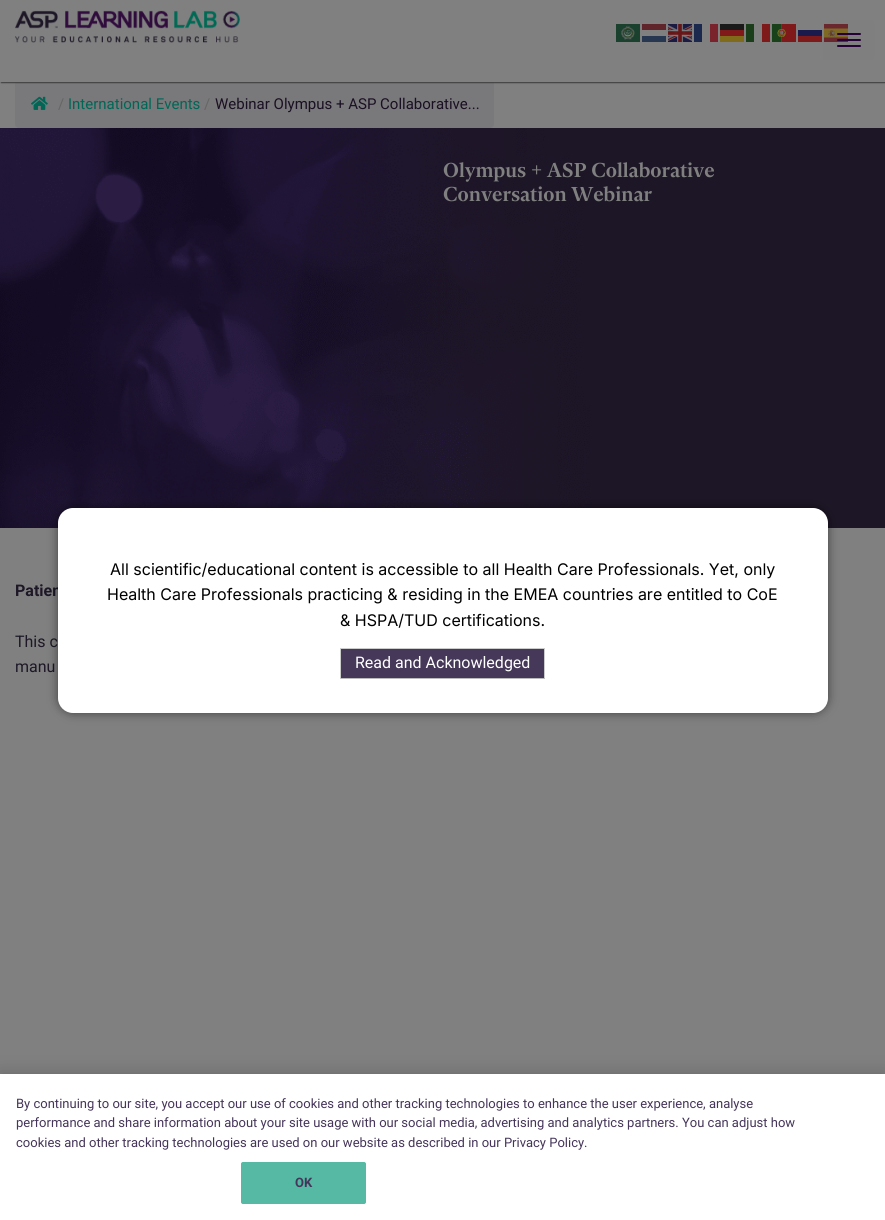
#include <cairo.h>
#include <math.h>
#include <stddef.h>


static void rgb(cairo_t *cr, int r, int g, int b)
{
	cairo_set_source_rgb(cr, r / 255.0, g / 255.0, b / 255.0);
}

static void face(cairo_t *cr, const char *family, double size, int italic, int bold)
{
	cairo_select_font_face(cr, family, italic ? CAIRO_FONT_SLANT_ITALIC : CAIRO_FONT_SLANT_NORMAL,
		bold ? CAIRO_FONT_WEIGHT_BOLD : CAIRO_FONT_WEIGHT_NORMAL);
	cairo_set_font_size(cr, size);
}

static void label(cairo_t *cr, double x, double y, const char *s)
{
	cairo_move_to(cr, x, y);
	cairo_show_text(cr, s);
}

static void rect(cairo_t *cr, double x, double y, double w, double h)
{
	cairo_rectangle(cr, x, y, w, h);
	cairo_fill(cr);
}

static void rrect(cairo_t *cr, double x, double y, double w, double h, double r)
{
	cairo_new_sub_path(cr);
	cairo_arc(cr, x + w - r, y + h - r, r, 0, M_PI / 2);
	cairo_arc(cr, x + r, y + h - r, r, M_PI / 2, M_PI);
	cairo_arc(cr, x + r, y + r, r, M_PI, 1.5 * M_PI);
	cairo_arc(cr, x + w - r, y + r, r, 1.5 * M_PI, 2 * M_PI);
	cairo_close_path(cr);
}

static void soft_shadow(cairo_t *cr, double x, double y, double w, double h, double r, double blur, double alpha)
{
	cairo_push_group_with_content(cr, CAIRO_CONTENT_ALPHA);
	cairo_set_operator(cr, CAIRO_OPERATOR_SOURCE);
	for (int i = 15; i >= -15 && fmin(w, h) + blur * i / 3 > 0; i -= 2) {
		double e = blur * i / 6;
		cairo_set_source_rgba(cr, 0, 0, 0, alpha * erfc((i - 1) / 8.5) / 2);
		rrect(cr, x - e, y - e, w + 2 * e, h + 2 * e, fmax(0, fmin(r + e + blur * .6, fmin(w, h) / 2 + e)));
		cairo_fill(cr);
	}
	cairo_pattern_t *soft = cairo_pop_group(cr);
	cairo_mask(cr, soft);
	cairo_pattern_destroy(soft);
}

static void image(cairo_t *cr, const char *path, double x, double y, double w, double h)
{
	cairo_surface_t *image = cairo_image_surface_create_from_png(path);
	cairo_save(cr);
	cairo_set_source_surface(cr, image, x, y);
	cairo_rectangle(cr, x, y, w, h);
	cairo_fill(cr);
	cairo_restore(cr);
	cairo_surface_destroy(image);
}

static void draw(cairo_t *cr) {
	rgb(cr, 128, 128, 128);
	cairo_paint(cr);
	rgb(cr, 121, 120, 122);
	rrect(cr, 15, 80, 479, 48, 4);
	cairo_fill(cr);
	rgb(cr, 64, 64, 64);
	soft_shadow(cr, 1, 1, 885, 82, 0, 0.5, 1);
	rgb(cr, 128, 128, 128);
	rect(cr, 0, 0, 885, 82);
	image(cr, "image0.png", 15, 10, 225, 33);
	image(cr, "image1.png", 616, 24, 24, 18);
	rgb(cr, 95, 37, 42);
	rect(cr, 642, 24, 24, 6);
	rgb(cr, 39, 54, 81);
	rect(cr, 642, 36, 24, 6);
	image(cr, "image2.png", 668, 24, 24, 18);
	rgb(cr, 26, 41, 77);
	rect(cr, 694, 24, 8, 18);
	rgb(cr, 123, 35, 45);
	rect(cr, 710, 24, 8, 18);
	rgb(cr, 26, 26, 26);
	rect(cr, 720, 24, 24, 6);
	rgb(cr, 128, 26, 26);
	rect(cr, 720, 30, 24, 6);
	rgb(cr, 128, 107, 26);
	rect(cr, 720, 36, 24, 6);
	rgb(cr, 26, 61, 26);
	rect(cr, 746, 24, 8, 18);
	rgb(cr, 127, 26, 26);
	rect(cr, 762, 24, 8, 18);
	image(cr, "image3.png", 772, 24, 24, 18);
	rgb(cr, 26, 26, 76);
	rect(cr, 798, 30, 24, 6);
	rgb(cr, 127, 26, 26);
	rect(cr, 798, 36, 24, 6);
	image(cr, "image4.png", 824, 24, 24, 18);
	cairo_set_source_rgba(cr, 0.502, 0.502, 0.502, 0.1);
	rrect(cr, 823, 20, 52, 40, 2);
	cairo_fill(cr);
	rgb(cr, 38, 0, 55);
	rrect(cr, 837, 33, 24, 2, 1);
	cairo_fill(cr);
	rrect(cr, 837, 39, 24, 2, 1);
	cairo_fill(cr);
	rrect(cr, 837, 45, 24, 2, 1);
	cairo_fill(cr);
	image(cr, "image5.png", 31, 96, 17, 14);
	face(cr, "Roboto", 15, 0, 0);
	rgb(cr, 102, 102, 102);
	label(cr, 58, 109, "/");
	rgb(cr, 0, 103, 86);
	label(cr, 68, 109, "International Events");
	rgb(cr, 102, 102, 102);
	label(cr, 204, 109, "/");
	rgb(cr, 26, 16, 35);
	label(cr, 215, 109, "Webinar Olympus + ASP Collaborative...");
	image(cr, "image6.png", 0, 128, 885, 400);
	face(cr, "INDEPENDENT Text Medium", 20, 0, 0);
	rgb(cr, 128, 128, 128);
	label(cr, 443, 177, "Olympus + ASP Collaborative");
	label(cr, 443, 201, "Conversation Webinar");
	face(cr, "Roboto", 16, 0, 1);
	rgb(cr, 29, 23, 38);
	label(cr, 15, 596, "Patien");
	face(cr, "Roboto", 16, 0, 0);
	label(cr, 15, 647, "This c");
	label(cr, 15, 672, "manu");
	rgb(cr, 0, 0, 0);
	soft_shadow(cr, 58, 508, 770, 205, 15, 5, 0.5);
	rgb(cr, 255, 255, 255);
	rrect(cr, 58, 508, 770, 205, 15);
	cairo_fill(cr);
	face(cr, "Inter", 16, 0, 0);
	rgb(cr, 0, 0, 0);
	label(cr, 110, 575, "All scientific/educational content is accessible to all Health Care Professionals. Yet, only");
	label(cr, 107, 600, "Health Care Professionals practicing & residing in the EMEA countries are entitled to CoE");
	label(cr, 340, 626, "& HSPA/TUD certifications.");
	rgb(cr, 69, 56, 88);
	rect(cr, 341, 649, 203, 29);
	rgb(cr, 204, 204, 204);
	rect(cr, 340, 648, 205, 1);
	rect(cr, 544, 648, 1, 31);
	rgb(cr, 187, 187, 187);
	rect(cr, 340, 678, 205, 1);
	rgb(cr, 204, 204, 204);
	rect(cr, 340, 648, 1, 31);
	face(cr, "Roboto", 16, 0, 0);
	rgb(cr, 255, 255, 255);
	label(cr, 355, 668, "Read and Acknowledged");
	rgb(cr, 0, 0, 0);
	soft_shadow(cr, 0, 1074, 885, 146, 0, 9, 0.2);
	rgb(cr, 255, 255, 255);
	rect(cr, 0, 1074, 885, 146);
	face(cr, "Roboto", 13, 0, 0);
	rgb(cr, 69, 53, 90);
	label(cr, 16, 1108, "By continuing to our site, you accept our use of cookies and other tracking technologies to enhance the user experience, analyse");
	label(cr, 16, 1127, "performance and share information about your site usage with our social media, advertising and analytics partners. You can adjust how");
	label(cr, 16, 1147, "cookies and other tracking technologies are used on our website as described in our Privacy Policy.");
	rgb(cr, 85, 185, 164);
	rrect(cr, 241.5, 1162.5, 124, 41, 1.5);
	cairo_fill_preserve(cr);
	cairo_set_line_width(cr, 1);
	cairo_stroke(cr);
	face(cr, "Roboto", 13, 0, 1);
	rgb(cr, 69, 53, 90);
	label(cr, 295, 1187, "OK");
}

int main(void) {
	cairo_surface_t *surface = cairo_image_surface_create(CAIRO_FORMAT_RGB24, 885, 1220);
	cairo_t *cr = cairo_create(surface);
	cairo_font_options_t *options = cairo_font_options_create();
	cairo_font_options_set_hint_metrics(options, CAIRO_HINT_METRICS_OFF);
	cairo_font_options_set_hint_style(options, CAIRO_HINT_STYLE_NONE);
	cairo_set_font_options(cr, options);
	cairo_set_miter_limit(cr, 4);
	draw(cr);
	cairo_surface_write_to_png(surface, "render.png");
	cairo_font_options_destroy(options);
	cairo_destroy(cr);
	cairo_surface_destroy(surface);
	return 0;
}
